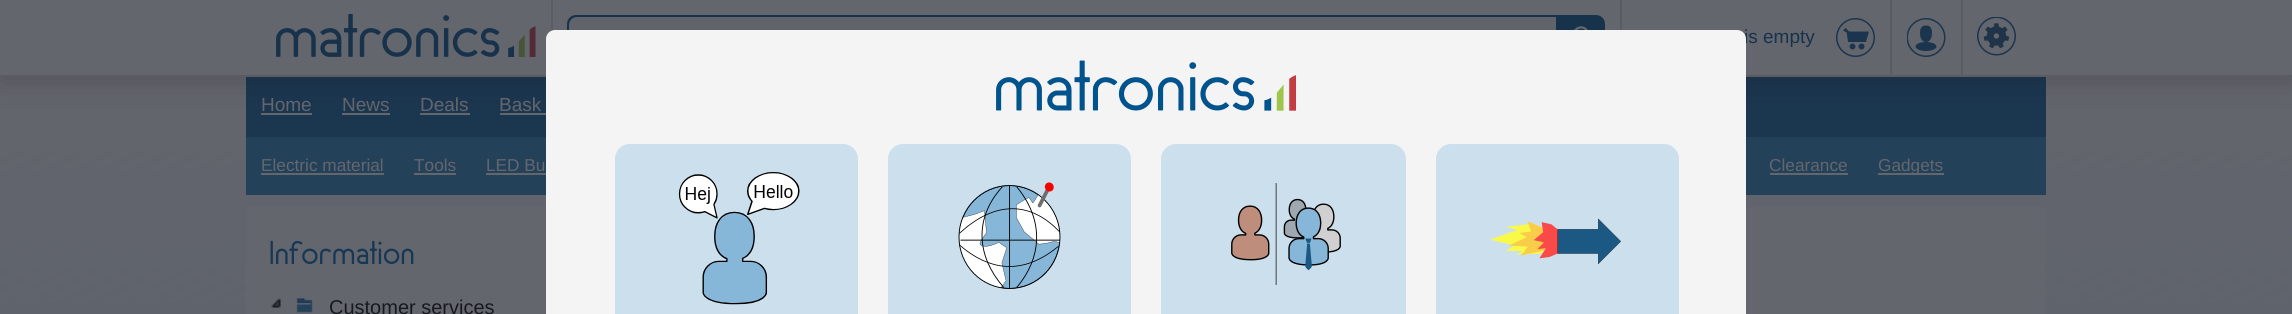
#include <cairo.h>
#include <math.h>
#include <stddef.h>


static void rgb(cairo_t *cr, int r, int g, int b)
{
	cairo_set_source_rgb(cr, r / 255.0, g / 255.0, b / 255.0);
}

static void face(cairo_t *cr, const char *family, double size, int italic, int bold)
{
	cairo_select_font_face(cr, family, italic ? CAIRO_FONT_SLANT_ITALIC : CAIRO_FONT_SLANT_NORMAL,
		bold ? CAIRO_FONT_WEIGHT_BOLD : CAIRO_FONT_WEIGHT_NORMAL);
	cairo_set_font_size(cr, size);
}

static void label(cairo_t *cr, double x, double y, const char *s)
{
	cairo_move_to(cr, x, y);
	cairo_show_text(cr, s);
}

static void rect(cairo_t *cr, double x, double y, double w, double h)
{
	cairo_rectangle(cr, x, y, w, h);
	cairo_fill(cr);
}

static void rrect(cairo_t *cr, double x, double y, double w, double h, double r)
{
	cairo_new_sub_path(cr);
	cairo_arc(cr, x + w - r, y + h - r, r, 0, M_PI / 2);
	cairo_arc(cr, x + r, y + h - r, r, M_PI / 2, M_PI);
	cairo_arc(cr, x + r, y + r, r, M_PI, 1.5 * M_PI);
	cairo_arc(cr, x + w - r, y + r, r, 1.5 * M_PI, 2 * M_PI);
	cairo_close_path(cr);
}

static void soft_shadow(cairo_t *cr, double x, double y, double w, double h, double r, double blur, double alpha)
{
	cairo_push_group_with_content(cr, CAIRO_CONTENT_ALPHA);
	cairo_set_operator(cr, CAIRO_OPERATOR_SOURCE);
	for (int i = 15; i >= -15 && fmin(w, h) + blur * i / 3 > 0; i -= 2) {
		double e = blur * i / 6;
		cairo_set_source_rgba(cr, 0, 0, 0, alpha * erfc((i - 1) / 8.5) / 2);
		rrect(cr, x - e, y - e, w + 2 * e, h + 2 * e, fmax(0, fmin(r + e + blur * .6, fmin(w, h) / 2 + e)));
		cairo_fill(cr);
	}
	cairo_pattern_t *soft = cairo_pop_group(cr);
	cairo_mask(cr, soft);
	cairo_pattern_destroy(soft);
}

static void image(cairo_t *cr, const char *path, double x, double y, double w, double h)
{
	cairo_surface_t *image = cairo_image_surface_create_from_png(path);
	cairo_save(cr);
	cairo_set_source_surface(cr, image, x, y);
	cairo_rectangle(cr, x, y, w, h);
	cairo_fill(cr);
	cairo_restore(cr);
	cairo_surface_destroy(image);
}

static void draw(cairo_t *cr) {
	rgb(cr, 255, 255, 255);
	cairo_paint(cr);
	image(cr, "image0.png", 0, 77, 2292, 237);
	rgb(cr, 27, 54, 79);
	rect(cr, 246, 77, 1800, 60);
	rgb(cr, 100, 102, 109);
	rect(cr, 261, 113, 51, 2);
	rect(cr, 342, 113, 48, 2);
	rect(cr, 420, 113, 50, 2);
	rect(cr, 500, 113, 46, 2);
	rgb(cr, 23, 25, 32);
	soft_shadow(cr, 0, 6, 2292, 77, 0, 13.5, 0.2);
	rgb(cr, 100, 102, 109);
	rect(cr, 0, 0, 2292, 75);
	rgb(cr, 89, 92, 99);
	rect(cr, 0, 75, 2292, 2);
	rect(cr, 551, 0, 2, 31);
	image(cr, "image1.png", 276, 14, 260, 43);
	rgb(cr, 23, 50, 75);
	rrect(cr, 568, 16, 1036, 43, 8);
	cairo_fill_preserve(cr);
	cairo_stroke(cr);
	rgb(cr, 97, 99, 106);
	cairo_new_path(cr);
	cairo_move_to(cr, 577, 17);
	cairo_line_to(cr, 1556, 17);
	cairo_line_to(cr, 1556, 59);
	cairo_line_to(cr, 577, 59);
	cairo_curve_to(cr, 572.5, 59, 569, 55.5, 569, 51);
	cairo_line_to(cr, 569, 25);
	cairo_curve_to(cr, 569, 20.5, 572.5, 17, 577, 17);
	cairo_close_path(cr);
	cairo_fill(cr);
	image(cr, "image2.png", 1574, 26, 14, 4);
	rgb(cr, 89, 92, 99);
	rect(cr, 1620, 0, 2, 30);
	face(cr, "Liberation Sans", 19, 0, 0);
	rgb(cr, 23, 50, 75);
	label(cr, 1744, 43, "is empty");
	image(cr, "image3.png", 1836, 18, 39, 39);
	rgb(cr, 89, 92, 99);
	rect(cr, 1890, 0, 2, 75);
	image(cr, "image4.png", 1907, 18, 39, 39);
	rect(cr, 1961, 0, 2, 75);
	image(cr, "image5.png", 1977, 17, 39, 39);
	rgb(cr, 100, 102, 109);
	label(cr, 261, 111, "Home");
	label(cr, 342, 111, "News");
	label(cr, 420, 111, "Deals");
	label(cr, 499, 111, "Bask");
	rgb(cr, 36, 65, 90);
	rect(cr, 246, 137, 1800, 58);
	face(cr, "Liberation Sans", 17.25, 0, 0);
	rgb(cr, 100, 102, 109);
	label(cr, 261, 171, "Electric material");
	rect(cr, 261, 173, 123, 2);
	label(cr, 414, 171, "Tools");
	rect(cr, 414, 173, 42, 2);
	label(cr, 486, 171, "LED Bu");
	rect(cr, 486, 173, 60, 2);
	label(cr, 1769, 171, "Clearance");
	rect(cr, 1770, 173, 78, 2);
	rect(cr, 1878, 173, 66, 2);
	label(cr, 1878, 171, "Gadgets");
	rect(cr, 246, 207, 1800, 107);
	face(cr, "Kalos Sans", 38.5, 0, 0);
	rgb(cr, 23, 55, 85);
	label(cr, 269, 264, "Information");
	image(cr, "image6.png", 271, 298, 10, 10);
	image(cr, "image7.png", 296, 298, 17, 15);
	face(cr, "Liberation Sans", 20, 0, 0);
	rgb(cr, 23, 25, 32);
	label(cr, 329, 314, "Customer services");
	rgb(cr, 244, 244, 244);
	cairo_new_path(cr);
	cairo_move_to(cr, 555, 30);
	cairo_line_to(cr, 1737, 30);
	cairo_curve_to(cr, 1742, 30, 1746, 34, 1746, 39);
	cairo_line_to(cr, 1746, 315);
	cairo_line_to(cr, 546, 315);
	cairo_line_to(cr, 546, 39);
	cairo_curve_to(cr, 546, 34, 550, 30, 555, 30);
	cairo_close_path(cr);
	cairo_fill(cr);
	image(cr, "image8.png", 996, 60, 300, 51);
	rgb(cr, 203, 223, 237);
	rrect(cr, 615, 144, 243, 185, 15);
	cairo_fill(cr);
	image(cr, "image9.png", 678, 172, 122, 133);
	rrect(cr, 888, 144, 243, 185, 15);
	cairo_fill(cr);
	image(cr, "image10.png", 958, 182, 103, 107);
	rrect(cr, 1161, 144, 245, 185, 15);
	cairo_fill(cr);
	image(cr, "image11.png", 1231, 183, 110, 102);
	rrect(cr, 1436, 144, 243, 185, 15);
	cairo_fill(cr);
	image(cr, "image12.png", 1490, 218, 131, 46);
}

int main(void) {
	cairo_surface_t *surface = cairo_image_surface_create(CAIRO_FORMAT_RGB24, 2292, 314);
	cairo_t *cr = cairo_create(surface);
	cairo_font_options_t *options = cairo_font_options_create();
	cairo_font_options_set_hint_metrics(options, CAIRO_HINT_METRICS_OFF);
	cairo_font_options_set_hint_style(options, CAIRO_HINT_STYLE_NONE);
	cairo_set_font_options(cr, options);
	cairo_set_miter_limit(cr, 4);
	draw(cr);
	cairo_surface_write_to_png(surface, "render.png");
	cairo_font_options_destroy(options);
	cairo_destroy(cr);
	cairo_surface_destroy(surface);
	return 0;
}
